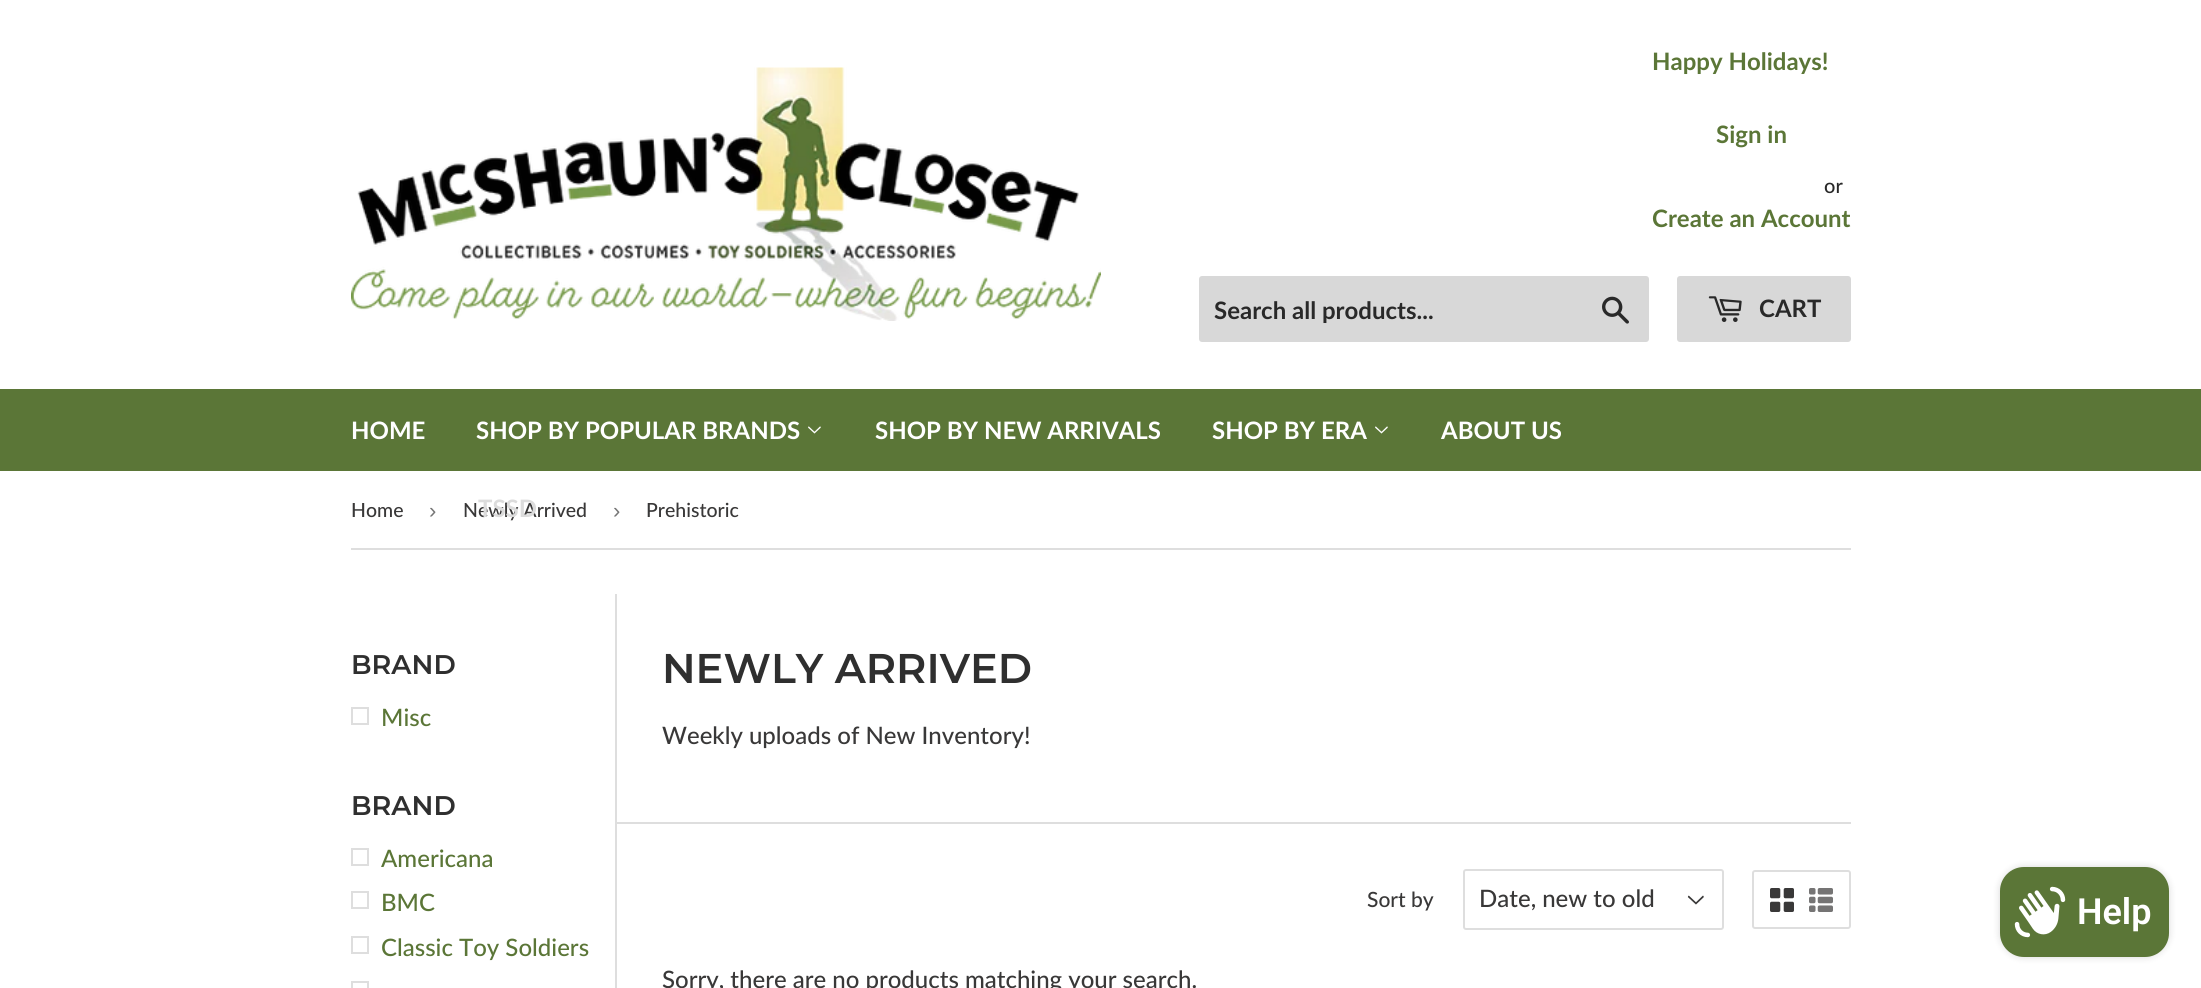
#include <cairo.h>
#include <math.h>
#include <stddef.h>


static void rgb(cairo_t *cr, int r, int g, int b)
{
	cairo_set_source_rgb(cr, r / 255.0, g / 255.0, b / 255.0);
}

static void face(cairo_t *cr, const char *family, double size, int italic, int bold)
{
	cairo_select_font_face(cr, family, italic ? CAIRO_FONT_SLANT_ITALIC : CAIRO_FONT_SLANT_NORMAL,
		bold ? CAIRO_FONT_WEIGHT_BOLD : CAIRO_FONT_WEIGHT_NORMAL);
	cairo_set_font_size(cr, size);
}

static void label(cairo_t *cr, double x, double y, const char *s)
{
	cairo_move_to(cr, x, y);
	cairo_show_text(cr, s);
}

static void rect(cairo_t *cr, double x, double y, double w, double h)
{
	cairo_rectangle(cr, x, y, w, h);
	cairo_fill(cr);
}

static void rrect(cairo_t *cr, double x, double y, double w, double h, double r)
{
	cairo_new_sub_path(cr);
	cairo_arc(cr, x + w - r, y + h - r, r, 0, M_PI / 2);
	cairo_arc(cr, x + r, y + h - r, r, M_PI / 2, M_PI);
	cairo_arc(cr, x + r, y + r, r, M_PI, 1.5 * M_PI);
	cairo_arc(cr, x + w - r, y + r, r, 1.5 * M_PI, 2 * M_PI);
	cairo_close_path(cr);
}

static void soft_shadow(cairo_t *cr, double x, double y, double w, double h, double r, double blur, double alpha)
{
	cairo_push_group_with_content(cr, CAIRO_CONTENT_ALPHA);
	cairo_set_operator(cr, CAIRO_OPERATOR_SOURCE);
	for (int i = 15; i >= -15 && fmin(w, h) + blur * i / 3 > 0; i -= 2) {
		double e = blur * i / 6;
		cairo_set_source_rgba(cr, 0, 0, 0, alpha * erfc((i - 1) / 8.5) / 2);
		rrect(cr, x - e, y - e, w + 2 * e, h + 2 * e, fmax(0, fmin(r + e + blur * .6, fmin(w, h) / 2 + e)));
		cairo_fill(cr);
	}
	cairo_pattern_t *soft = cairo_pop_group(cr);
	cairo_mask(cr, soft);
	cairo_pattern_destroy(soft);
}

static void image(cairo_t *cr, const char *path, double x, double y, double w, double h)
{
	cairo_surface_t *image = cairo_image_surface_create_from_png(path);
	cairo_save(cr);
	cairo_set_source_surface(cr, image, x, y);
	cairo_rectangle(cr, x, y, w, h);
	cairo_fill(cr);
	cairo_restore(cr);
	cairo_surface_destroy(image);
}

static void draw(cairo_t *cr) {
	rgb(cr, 255, 255, 255);
	cairo_paint(cr);
	image(cr, "image0.png", 351, 67, 750, 254);
	face(cr, "Lato", 24, 0, 1);
	rgb(cr, 91, 118, 55);
	label(cr, 1652, 70, "Happy Holidays!");
	label(cr, 1716, 143, "Sign in");
	face(cr, "Lato Medium", 20, 0, 0);
	rgb(cr, 41, 41, 41);
	label(cr, 1824, 193, "or");
	face(cr, "Lato", 24, 0, 1);
	rgb(cr, 91, 118, 55);
	label(cr, 1652, 227, "Create an Account");
	rgb(cr, 216, 216, 216);
	rrect(cr, 1199, 276, 450, 66, 3);
	cairo_fill(cr);
	rgb(cr, 41, 41, 41);
	label(cr, 1214, 319, "Search all products...");
	image(cr, "image1.png", 1602, 296, 27, 28);
	rgb(cr, 216, 216, 216);
	rrect(cr, 1677, 276, 174, 66, 3);
	cairo_fill(cr);
	image(cr, "image2.png", 1708, 296, 34, 26);
	rgb(cr, 41, 41, 41);
	label(cr, 1759, 317, "CART");
	rgb(cr, 91, 118, 55);
	rect(cr, 0, 389, 2201, 82);
	rgb(cr, 255, 255, 255);
	label(cr, 351, 439, "HOME");
	label(cr, 476, 439, "SHOP BY POPULAR BRANDS");
	image(cr, "image3.png", 808, 426, 13, 8);
	face(cr, "Lato Medium", 19.5, 0, 0);
	rgb(cr, 57, 56, 56);
	label(cr, 463, 517, "Newly Arrived");
	face(cr, "Lato", 24, 0, 1);
	rgb(cr, 220, 220, 220);
	label(cr, 478, 517, "TSSD");
	rgb(cr, 255, 255, 255);
	label(cr, 875, 439, "SHOP BY NEW ARRIVALS");
	label(cr, 1212, 439, "SHOP BY ERA");
	image(cr, "image3.png", 1375, 426, 13, 8);
	label(cr, 1441, 439, "ABOUT US");
	rgb(cr, 222, 222, 222);
	rect(cr, 351, 548, 1500, 2);
	face(cr, "Lato Medium", 19.5, 0, 0);
	rgb(cr, 57, 56, 56);
	label(cr, 351, 517, "Home");
	face(cr, "Liberation Sans", 22, 0, 0);
	rgb(cr, 118, 118, 118);
	label(cr, 429, 518, "›");
	label(cr, 613, 518, "›");
	face(cr, "Lato Medium", 19.5, 0, 0);
	rgb(cr, 57, 56, 56);
	label(cr, 646, 517, "Prehistoric");
	face(cr, "Montserrat SemiBold", 27, 0, 0);
	rgb(cr, 47, 47, 47);
	label(cr, 351, 674, "BRAND");
	cairo_rectangle(cr, 352, 708, 16, 16);
	rgb(cr, 222, 222, 222);
	cairo_stroke(cr);
	face(cr, "Lato Medium", 24, 0, 0);
	rgb(cr, 91, 118, 55);
	label(cr, 381, 726, "Misc");
	face(cr, "Montserrat SemiBold", 27, 0, 0);
	rgb(cr, 47, 47, 47);
	label(cr, 351, 815, "BRAND");
	cairo_rectangle(cr, 352, 849, 16, 16);
	rgb(cr, 222, 222, 222);
	cairo_stroke(cr);
	face(cr, "Lato Medium", 24, 0, 0);
	rgb(cr, 91, 118, 55);
	label(cr, 381, 867, "Americana");
	cairo_rectangle(cr, 352, 892, 16, 16);
	rgb(cr, 222, 222, 222);
	cairo_stroke(cr);
	rgb(cr, 91, 118, 55);
	label(cr, 381, 911, "BMC");
	cairo_rectangle(cr, 352, 937, 16, 16);
	rgb(cr, 222, 222, 222);
	cairo_stroke(cr);
	rgb(cr, 91, 118, 55);
	label(cr, 381, 956, "Classic Toy Soldiers");
	cairo_rectangle(cr, 352, 982, 16, 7);
	rgb(cr, 222, 222, 222);
	cairo_stroke(cr);
	rect(cr, 615, 594, 2, 394);
	face(cr, "Montserrat SemiBold", 41.5, 0, 0);
	rgb(cr, 47, 47, 47);
	label(cr, 662, 683, "NEWLY ARRIVED");
	face(cr, "Lato Medium", 24, 0, 0);
	rgb(cr, 57, 56, 56);
	label(cr, 662, 744, "Weekly uploads of New Inventory!");
	rgb(cr, 222, 222, 222);
	rect(cr, 617, 822, 1234, 2);
	face(cr, "Lato Medium", 21, 0, 0);
	rgb(cr, 57, 56, 56);
	label(cr, 1367, 907, "Sort by");
	image(cr, "image4.png", 1687, 895, 17, 10);
	rrect(cr, 1464, 870, 259, 59, 2);
	rgb(cr, 222, 222, 222);
	cairo_stroke(cr);
	face(cr, "Lato Medium", 24, 0, 0);
	rgb(cr, 57, 56, 56);
	label(cr, 1479, 907, "Date, new to old");
	rrect(cr, 1753, 871, 97, 57, 2);
	rgb(cr, 222, 222, 222);
	cairo_stroke(cr);
	image(cr, "image5.png", 1770, 888, 24, 24);
	image(cr, "image6.png", 1809, 888, 24, 24);
	rgb(cr, 57, 56, 56);
	label(cr, 662, 988, "Sorry, there are no products matching your search.");
	rgb(cr, 0, 0, 0);
	soft_shadow(cr, 2000, 867, 169, 90, 24, 4, 0.15);
	rgb(cr, 91, 118, 55);
	rrect(cr, 2000, 867, 169, 90, 24);
	cairo_fill(cr);
	image(cr, "image7.png", 2014, 886, 52, 52);
	face(cr, "Roboto SemiBold", 36, 0, 0);
	rgb(cr, 255, 255, 255);
	label(cr, 2077, 924, "Help");
}

int main(void) {
	cairo_surface_t *surface = cairo_image_surface_create(CAIRO_FORMAT_RGB24, 2201, 988);
	cairo_t *cr = cairo_create(surface);
	cairo_font_options_t *options = cairo_font_options_create();
	cairo_font_options_set_hint_metrics(options, CAIRO_HINT_METRICS_OFF);
	cairo_font_options_set_hint_style(options, CAIRO_HINT_STYLE_NONE);
	cairo_set_font_options(cr, options);
	cairo_set_miter_limit(cr, 4);
	draw(cr);
	cairo_surface_write_to_png(surface, "render.png");
	cairo_font_options_destroy(options);
	cairo_destroy(cr);
	cairo_surface_destroy(surface);
	return 0;
}
